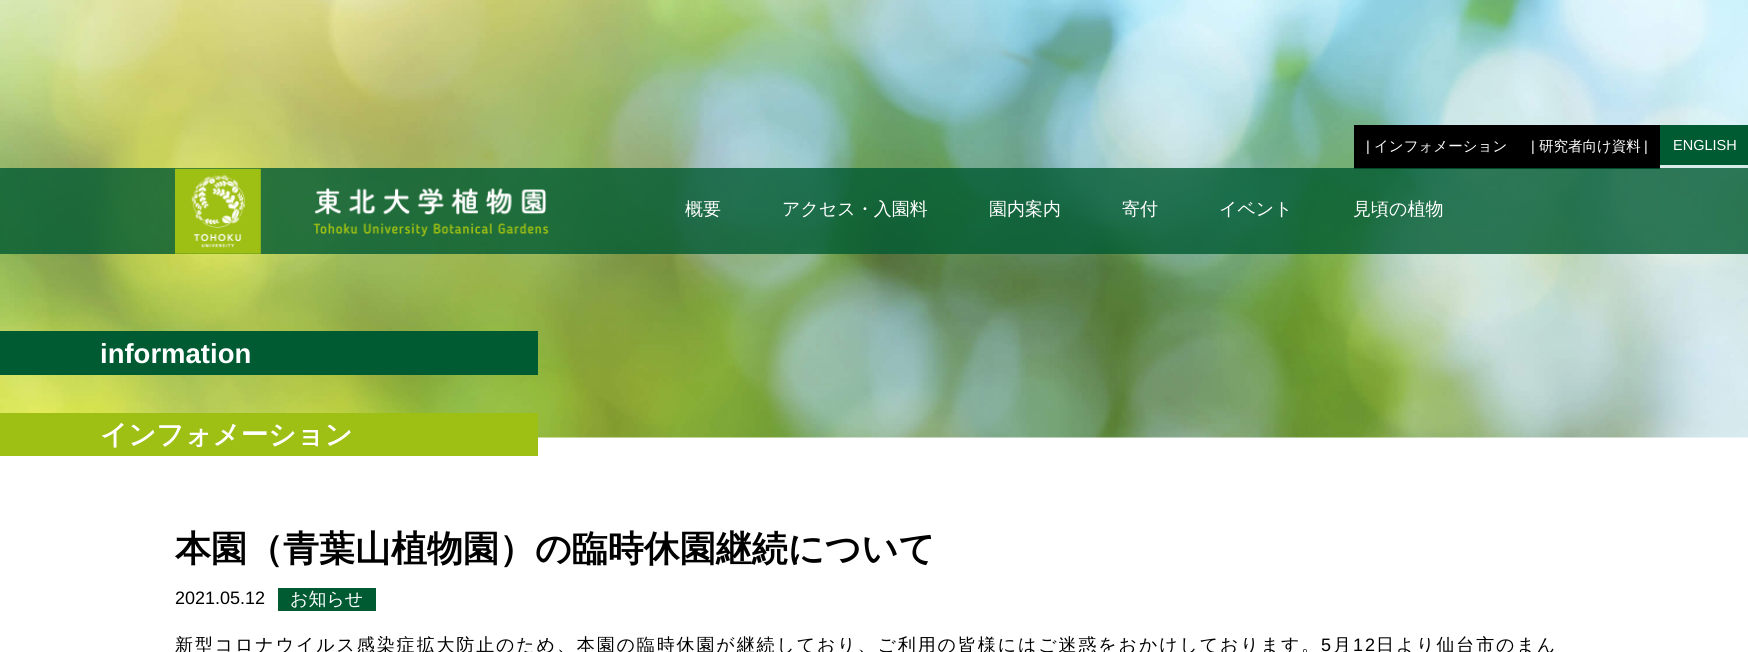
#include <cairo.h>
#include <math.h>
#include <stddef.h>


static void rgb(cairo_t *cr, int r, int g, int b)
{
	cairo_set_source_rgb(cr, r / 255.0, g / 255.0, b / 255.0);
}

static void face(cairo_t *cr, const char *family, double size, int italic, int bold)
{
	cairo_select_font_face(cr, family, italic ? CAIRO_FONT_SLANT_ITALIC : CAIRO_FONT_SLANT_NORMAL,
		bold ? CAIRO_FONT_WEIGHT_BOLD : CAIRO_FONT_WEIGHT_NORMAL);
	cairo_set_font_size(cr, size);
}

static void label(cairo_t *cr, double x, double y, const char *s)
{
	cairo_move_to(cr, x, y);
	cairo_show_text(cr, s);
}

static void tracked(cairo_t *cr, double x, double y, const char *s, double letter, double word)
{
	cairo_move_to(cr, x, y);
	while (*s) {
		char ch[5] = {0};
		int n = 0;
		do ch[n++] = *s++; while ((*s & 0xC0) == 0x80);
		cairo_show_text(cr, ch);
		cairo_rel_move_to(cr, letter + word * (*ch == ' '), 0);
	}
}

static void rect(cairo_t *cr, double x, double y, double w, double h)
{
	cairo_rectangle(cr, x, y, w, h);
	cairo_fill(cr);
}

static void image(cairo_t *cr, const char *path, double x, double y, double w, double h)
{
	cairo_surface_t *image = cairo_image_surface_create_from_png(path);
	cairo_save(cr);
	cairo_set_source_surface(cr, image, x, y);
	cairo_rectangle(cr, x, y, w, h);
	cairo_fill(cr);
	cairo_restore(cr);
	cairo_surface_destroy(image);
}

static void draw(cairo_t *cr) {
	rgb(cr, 255, 255, 255);
	cairo_paint(cr);
	image(cr, "image1.png", 0, 0, 1748, 438);
	rgb(cr, 0, 0, 0);
	rect(cr, 1354, 125, 306, 44);
	face(cr, "Liberation Sans", 14.5, 0, 0);
	rgb(cr, 255, 255, 255);
	label(cr, 1366, 151, "|");
	face(cr, "WenQuanYi Zen Hei Medium", 14.5, 0, 0);
	label(cr, 1374, 151, "インフォメーション");
	face(cr, "Liberation Sans", 14.5, 0, 0);
	label(cr, 1531, 151, "|");
	face(cr, "WenQuanYi Zen Hei Medium", 14.5, 0, 0);
	label(cr, 1539, 151, "研究者向け資料");
	face(cr, "Liberation Sans", 14.5, 0, 0);
	label(cr, 1644, 151, "|");
	rgb(cr, 0, 90, 50);
	rect(cr, 1660, 125, 88, 40);
	rgb(cr, 255, 255, 255);
	label(cr, 1673, 150, "ENGLISH");
	cairo_set_source_rgba(cr, 0, 0.353, 0.196, 0.8);
	rect(cr, 0, 168, 1748, 86);
	image(cr, "image0.png", 175, 168, 374, 86);
	face(cr, "WenQuanYi Zen Hei Medium", 18, 0, 0);
	rgb(cr, 255, 255, 255);
	label(cr, 685, 215, "概要");
	label(cr, 782, 215, "アクセス・入園料");
	label(cr, 989, 215, "園内案内");
	label(cr, 1122, 215, "寄付");
	label(cr, 1219, 215, "イベント");
	label(cr, 1353, 215, "見頃の植物");
	rgb(cr, 0, 91, 51);
	rect(cr, 0, 331, 538, 44);
	face(cr, "Liberation Sans", 27.5, 0, 1);
	rgb(cr, 255, 255, 255);
	label(cr, 100, 363, "information");
	rgb(cr, 158, 191, 19);
	rect(cr, 0, 413, 538, 43);
	face(cr, "WenQuanYi Zen Hei", 27.5, 0, 1);
	rgb(cr, 255, 255, 255);
	label(cr, 100, 444, "インフォメーション");
	face(cr, "WenQuanYi Zen Hei", 36, 0, 1);
	rgb(cr, 0, 0, 0);
	label(cr, 175, 561, "本園（青葉山植物園）の臨時休園継続について");
	face(cr, "Liberation Sans", 18, 0, 0);
	label(cr, 175, 604, "2021.05.12");
	rgb(cr, 0, 90, 50);
	rect(cr, 278, 588, 98, 23);
	face(cr, "WenQuanYi Zen Hei Medium", 18, 0, 0);
	rgb(cr, 255, 255, 255);
	label(cr, 290, 605, "お知らせ");
	rgb(cr, 0, 0, 0);
	tracked(cr, 175, 651, "新型コロナウイルス感染症拡大防止のため、本園の臨時休園が継続しており、ご利用の皆様にはご迷惑をおかけしております。", 1.88, 0);
	face(cr, "Liberation Sans", 18, 0, 0);
	tracked(cr, 1321, 651, "5", 1.88, 0);
	face(cr, "WenQuanYi Zen Hei Medium", 18, 0, 0);
	tracked(cr, 1333, 651, "月", 1.88, 0);
	face(cr, "Liberation Sans", 18, 0, 0);
	tracked(cr, 1353, 651, "12", 1.88, 0);
	face(cr, "WenQuanYi Zen Hei Medium", 18, 0, 0);
	tracked(cr, 1376, 651, "日より仙台市のまん", 1.88, 0);
}

int main(void) {
	cairo_surface_t *surface = cairo_image_surface_create(CAIRO_FORMAT_RGB24, 1748, 652);
	cairo_t *cr = cairo_create(surface);
	cairo_font_options_t *options = cairo_font_options_create();
	cairo_font_options_set_hint_metrics(options, CAIRO_HINT_METRICS_OFF);
	cairo_font_options_set_hint_style(options, CAIRO_HINT_STYLE_NONE);
	cairo_set_font_options(cr, options);
	cairo_set_miter_limit(cr, 4);
	draw(cr);
	cairo_surface_write_to_png(surface, "render.png");
	cairo_font_options_destroy(options);
	cairo_destroy(cr);
	cairo_surface_destroy(surface);
	return 0;
}
